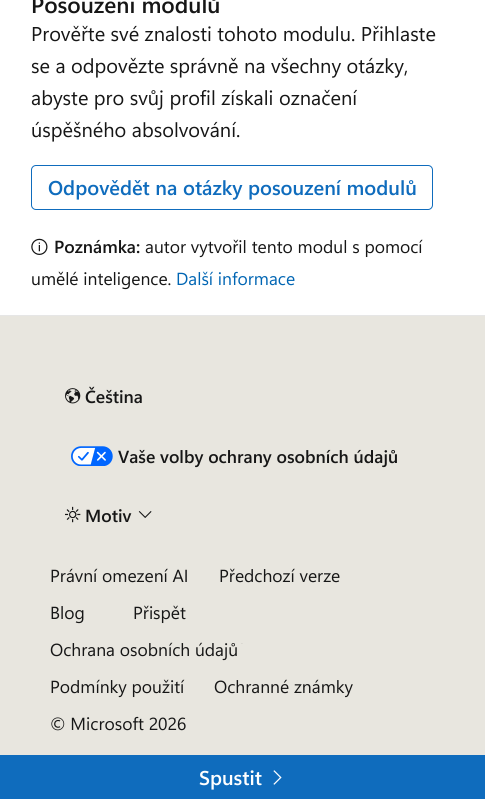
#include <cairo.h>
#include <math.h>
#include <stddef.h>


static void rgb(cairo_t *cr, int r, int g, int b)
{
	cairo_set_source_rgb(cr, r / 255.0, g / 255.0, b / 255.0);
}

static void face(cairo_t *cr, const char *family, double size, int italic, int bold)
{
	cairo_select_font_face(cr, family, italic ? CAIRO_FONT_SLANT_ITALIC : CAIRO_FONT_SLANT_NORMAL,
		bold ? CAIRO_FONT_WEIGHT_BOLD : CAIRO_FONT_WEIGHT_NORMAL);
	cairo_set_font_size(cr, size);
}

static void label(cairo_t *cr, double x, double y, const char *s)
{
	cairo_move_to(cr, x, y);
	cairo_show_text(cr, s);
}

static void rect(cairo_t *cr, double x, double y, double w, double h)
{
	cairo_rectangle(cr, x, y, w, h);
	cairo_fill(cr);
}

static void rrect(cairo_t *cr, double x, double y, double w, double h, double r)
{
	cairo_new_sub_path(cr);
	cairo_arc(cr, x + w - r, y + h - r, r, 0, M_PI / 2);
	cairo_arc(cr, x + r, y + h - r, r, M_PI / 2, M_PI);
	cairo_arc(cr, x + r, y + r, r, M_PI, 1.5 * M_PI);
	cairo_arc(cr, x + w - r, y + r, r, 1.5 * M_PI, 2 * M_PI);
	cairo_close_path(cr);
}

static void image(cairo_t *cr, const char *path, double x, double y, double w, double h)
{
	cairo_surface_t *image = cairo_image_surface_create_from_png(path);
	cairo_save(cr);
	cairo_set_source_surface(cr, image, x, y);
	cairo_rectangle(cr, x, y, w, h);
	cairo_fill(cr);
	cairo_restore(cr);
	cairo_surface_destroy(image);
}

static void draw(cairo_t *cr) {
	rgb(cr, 232, 230, 223);
	cairo_paint(cr);
	rgb(cr, 255, 255, 255);
	rect(cr, 0, 0, 485, 315);
	face(cr, "Segoe UI SemiBold", 22.5, 0, 0);
	rgb(cr, 22, 22, 22);
	label(cr, 31, 13, "Posouzení modulů");
	face(cr, "Segoe UI", 20, 0, 0);
	label(cr, 31, 41, "Prověřte své znalosti tohoto modulu. Přihlaste");
	label(cr, 31, 73, "se a odpovězte správně na všechny otázky,");
	label(cr, 31, 105, "abyste pro svůj profil získali označení");
	label(cr, 31, 137, "úspěšného absolvování.");
	rrect(cr, 31.5, 165.5, 401, 44, 4.5);
	rgb(cr, 15, 108, 189);
	cairo_set_line_width(cr, 1);
	cairo_stroke(cr);
	face(cr, "Segoe UI SemiBold", 20, 0, 0);
	label(cr, 48, 195, "Odpovědět na otázky posouzení modulů");
	image(cr, "image0.png", 31, 238, 17, 17);
	face(cr, "Segoe UI SemiBold", 17.5, 0, 0);
	rgb(cr, 22, 22, 22);
	label(cr, 54, 253, "Poznámka:");
	face(cr, "Segoe UI", 17.5, 0, 0);
	label(cr, 145, 253, "autor vytvořil tento modul s pomocí");
	label(cr, 31, 285, "umělé inteligence.");
	rgb(cr, 0, 101, 179);
	label(cr, 176, 285, "Další informace");
	rgb(cr, 15, 108, 189);
	rect(cr, 0, 755, 485, 44);
	face(cr, "Segoe UI SemiBold", 20, 0, 0);
	rgb(cr, 255, 255, 255);
	label(cr, 199, 785, "Spustit");
	image(cr, "image1.png", 273, 770, 9, 15);
	rgb(cr, 230, 230, 230);
	rect(cr, 0, 315, 485, 1);
	image(cr, "image2.png", 65, 388, 16, 16);
	face(cr, "Segoe UI SemiBold", 17.5, 0, 0);
	rgb(cr, 22, 22, 22);
	label(cr, 85, 403, "Čeština");
	image(cr, "image3.png", 71, 446, 42, 20);
	label(cr, 118, 463, "Vaše volby ochrany osobních údajů");
	image(cr, "image4.png", 65, 506, 16, 17);
	label(cr, 85, 522, "Motiv");
	image(cr, "image5.png", 138, 511, 14, 7);
	face(cr, "Segoe UI", 17.5, 0, 0);
	label(cr, 50, 582, "Právní omezení AI");
	label(cr, 219, 582, "Předchozí verze");
	label(cr, 50, 619, "Blog");
	label(cr, 133, 619, "Přispět");
	label(cr, 50, 656, "Ochrana osobních údajů");
	image(cr, "image6.png", 241, 643, 2, 1);
	label(cr, 50, 693, "Podmínky použití");
	label(cr, 214, 693, "Ochranné známky");
	label(cr, 50, 730, "© Microsoft 2026");
}

int main(void) {
	cairo_surface_t *surface = cairo_image_surface_create(CAIRO_FORMAT_RGB24, 485, 799);
	cairo_t *cr = cairo_create(surface);
	cairo_font_options_t *options = cairo_font_options_create();
	cairo_font_options_set_hint_metrics(options, CAIRO_HINT_METRICS_OFF);
	cairo_font_options_set_hint_style(options, CAIRO_HINT_STYLE_NONE);
	cairo_set_font_options(cr, options);
	cairo_set_miter_limit(cr, 4);
	draw(cr);
	cairo_surface_write_to_png(surface, "render.png");
	cairo_font_options_destroy(options);
	cairo_destroy(cr);
	cairo_surface_destroy(surface);
	return 0;
}
